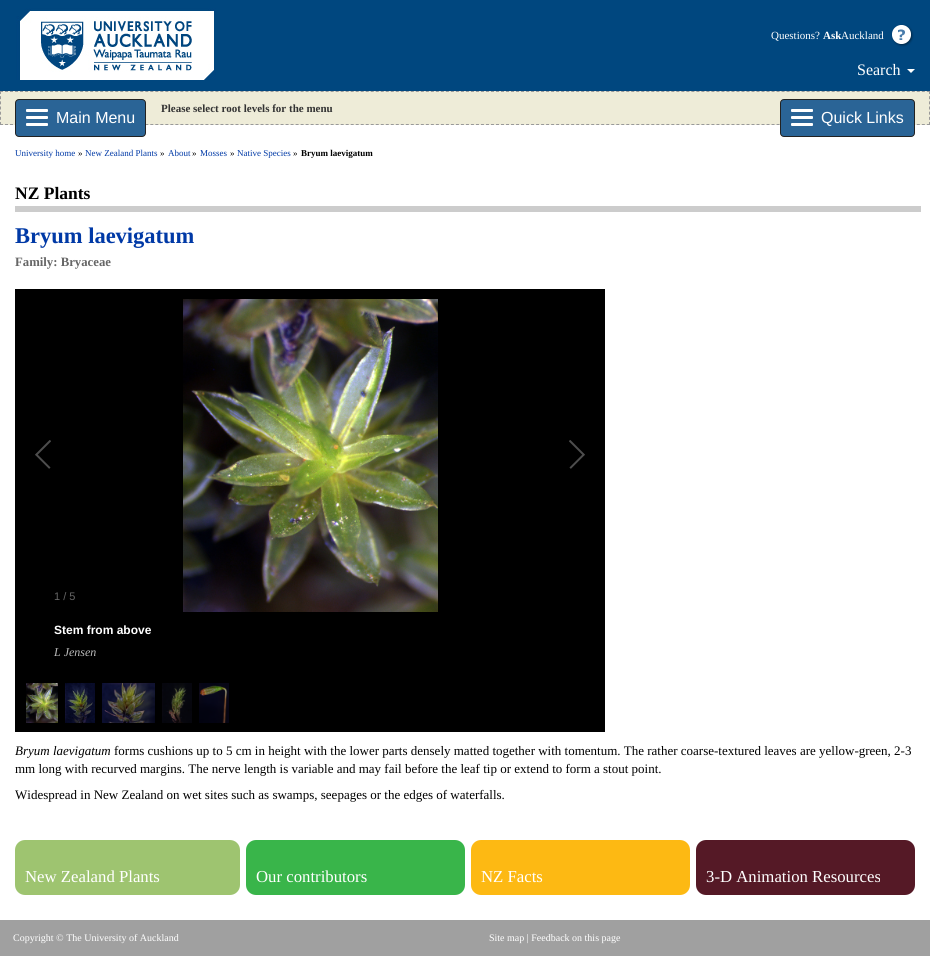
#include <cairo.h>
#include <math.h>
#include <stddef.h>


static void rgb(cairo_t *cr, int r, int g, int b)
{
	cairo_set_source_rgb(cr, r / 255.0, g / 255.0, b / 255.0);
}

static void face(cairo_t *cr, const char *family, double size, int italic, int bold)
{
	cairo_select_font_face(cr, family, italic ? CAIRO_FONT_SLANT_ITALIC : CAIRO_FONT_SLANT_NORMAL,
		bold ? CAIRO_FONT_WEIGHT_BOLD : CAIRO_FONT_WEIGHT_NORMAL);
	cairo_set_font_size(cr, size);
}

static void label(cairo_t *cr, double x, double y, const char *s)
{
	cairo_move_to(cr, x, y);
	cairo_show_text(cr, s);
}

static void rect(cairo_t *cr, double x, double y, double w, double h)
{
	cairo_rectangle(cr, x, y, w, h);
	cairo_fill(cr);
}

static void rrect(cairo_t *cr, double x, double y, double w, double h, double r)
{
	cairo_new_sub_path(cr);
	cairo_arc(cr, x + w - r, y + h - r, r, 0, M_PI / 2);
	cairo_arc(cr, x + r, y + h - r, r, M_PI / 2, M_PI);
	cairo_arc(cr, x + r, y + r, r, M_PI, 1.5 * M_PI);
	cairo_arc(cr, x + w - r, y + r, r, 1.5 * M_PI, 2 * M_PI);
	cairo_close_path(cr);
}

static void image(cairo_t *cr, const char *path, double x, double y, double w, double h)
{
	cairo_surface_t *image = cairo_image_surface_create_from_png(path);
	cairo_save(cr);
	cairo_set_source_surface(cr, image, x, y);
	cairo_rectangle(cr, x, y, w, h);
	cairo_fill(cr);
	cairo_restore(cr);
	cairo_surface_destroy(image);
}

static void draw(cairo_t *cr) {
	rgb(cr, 255, 255, 255);
	cairo_paint(cr);
	image(cr, "image0.png", 0, 0, 930, 91);
	image(cr, "image1.png", 891, 24, 23, 23);
	face(cr, "Liberation Serif", 11, 0, 0);
	rgb(cr, 255, 255, 255);
	label(cr, 771, 39, "Questions?");
	face(cr, "Liberation Serif", 11, 0, 1);
	label(cr, 823, 39, "Ask");
	face(cr, "Liberation Serif", 11, 0, 0);
	label(cr, 841, 39, "Auckland");
	face(cr, "Liberation Serif", 16, 0, 0);
	label(cr, 857, 75, "Search");
	cairo_new_path(cr);
	cairo_move_to(cr, 907, 69);
	cairo_line_to(cr, 915, 69);
	cairo_line_to(cr, 911, 73);
	cairo_close_path(cr);
	cairo_fill(cr);
	rgb(cr, 238, 236, 216);
	rect(cr, 0, 91, 930, 34);
	cairo_new_path(cr);
	cairo_move_to(cr, 0, 91.5);
	cairo_line_to(cr, 930, 91.5);
	rgb(cr, 153, 153, 153);
	cairo_set_line_width(cr, 1);
	cairo_set_dash(cr, (double[]){3, 2.01}, 2, 0);
	cairo_stroke(cr);
	cairo_new_path(cr);
	cairo_move_to(cr, 929.5, 91);
	cairo_line_to(cr, 929.5, 125);
	cairo_set_dash(cr, (double[]){3, 2.17}, 2, 0);
	cairo_stroke(cr);
	cairo_new_path(cr);
	cairo_move_to(cr, 0, 124.5);
	cairo_line_to(cr, 930, 124.5);
	cairo_set_dash(cr, (double[]){3, 2.01}, 2, 0);
	cairo_stroke(cr);
	cairo_new_path(cr);
	cairo_move_to(cr, 0.5, 91);
	cairo_line_to(cr, 0.5, 125);
	cairo_set_dash(cr, (double[]){3, 2.17}, 2, 0);
	cairo_stroke(cr);
	face(cr, "Liberation Serif", 11, 0, 1);
	rgb(cr, 51, 51, 51);
	label(cr, 161, 112, "Please select root levels for the menu");
	rgb(cr, 42, 100, 150);
	rrect(cr, 15.5, 99.5, 130, 37, 3.5);
	cairo_fill_preserve(cr);
	rgb(cr, 34, 34, 34);
	cairo_set_dash(cr, NULL, 0, 0);
	cairo_stroke(cr);
	rgb(cr, 255, 255, 255);
	rrect(cr, 26, 109, 22, 3, 1);
	cairo_fill(cr);
	rrect(cr, 26, 116, 22, 3, 1);
	cairo_fill(cr);
	face(cr, "Liberation Sans", 16, 0, 0);
	label(cr, 56, 123, "Main Menu");
	rrect(cr, 26, 123, 22, 3, 1);
	cairo_fill(cr);
	rgb(cr, 42, 100, 150);
	rrect(cr, 780.5, 99.5, 134, 37, 3.5);
	cairo_fill_preserve(cr);
	rgb(cr, 34, 34, 34);
	cairo_stroke(cr);
	rgb(cr, 255, 255, 255);
	rrect(cr, 791, 109, 22, 3, 1);
	cairo_fill(cr);
	rrect(cr, 791, 116, 22, 3, 1);
	cairo_fill(cr);
	label(cr, 821, 123, "Quick Links");
	rrect(cr, 791, 123, 22, 3, 1);
	cairo_fill(cr);
	face(cr, "Liberation Serif", 9, 0, 0);
	rgb(cr, 0, 57, 166);
	label(cr, 15, 156, "University home");
	rgb(cr, 0, 0, 0);
	label(cr, 78, 156, "»");
	rgb(cr, 0, 57, 166);
	label(cr, 85, 156, "New Zealand Plants");
	rgb(cr, 0, 0, 0);
	label(cr, 160, 156, "»");
	rgb(cr, 0, 57, 166);
	label(cr, 168, 156, "About");
	rgb(cr, 0, 0, 0);
	label(cr, 192, 156, "»");
	rgb(cr, 0, 57, 166);
	label(cr, 200, 156, "Mosses");
	rgb(cr, 0, 0, 0);
	label(cr, 230, 156, "»");
	rgb(cr, 0, 57, 166);
	label(cr, 237, 156, "Native Species");
	rgb(cr, 0, 0, 0);
	label(cr, 293, 156, "»");
	face(cr, "Liberation Serif", 9, 0, 1);
	label(cr, 301, 156, "Bryum laevigatum");
	face(cr, "Liberation Serif", 17.5, 0, 1);
	label(cr, 15, 199, "NZ Plants");
	rgb(cr, 204, 204, 204);
	rect(cr, 15, 206, 906, 6);
	face(cr, "Liberation Serif", 22.5, 0, 1);
	rgb(cr, 0, 57, 166);
	label(cr, 15, 243, "Bryum laevigatum");
	face(cr, "Liberation Serif", 12.75, 0, 1);
	rgb(cr, 102, 102, 102);
	label(cr, 15, 266, "Family: Bryaceae");
	rgb(cr, 0, 0, 0);
	rect(cr, 15, 289, 590, 443);
	image(cr, "image2.png", 183, 299, 255, 313);
	image(cr, "image3.png", 35, 440, 16, 29);
	image(cr, "image4.png", 569, 440, 16, 29);
	face(cr, "Liberation Sans", 11, 0, 0);
	rgb(cr, 102, 102, 102);
	label(cr, 54, 600, "1 / 5");
	face(cr, "Liberation Sans", 12, 0, 1);
	rgb(cr, 255, 255, 255);
	label(cr, 54, 634, "Stem from above");
	face(cr, "Liberation Serif", 12, 1, 0);
	rgb(cr, 187, 187, 187);
	label(cr, 54, 656, "L Jensen");
	image(cr, "image5.png", 26, 683, 32, 40);
	image(cr, "image6.png", 65, 683, 30, 40);
	image(cr, "image7.png", 102, 683, 53, 40);
	image(cr, "image8.png", 162, 683, 30, 40);
	image(cr, "image9.png", 199, 683, 30, 40);
	face(cr, "Liberation Serif", 13, 1, 0);
	rgb(cr, 0, 0, 0);
	label(cr, 15, 755, "Bryum laevigatum");
	face(cr, "Liberation Serif", 13, 0, 0);
	label(cr, 114, 755, "forms cushions up to 5 cm in height with the lower parts densely matted together with tomentum. The rather coarse-textured leaves are yellow-green, 2-3");
	label(cr, 15, 773, "mm long with recurved margins. The nerve length is variable and may fail before the leaf tip or extend to form a stout point.");
	label(cr, 15, 799, "Widespread in New Zealand on wet sites such as swamps, seepages or the edges of waterfalls.");
	rgb(cr, 158, 196, 112);
	rrect(cr, 15, 840, 225, 55, 10);
	cairo_fill(cr);
	face(cr, "Liberation Serif", 16.75, 0, 0);
	rgb(cr, 255, 255, 255);
	label(cr, 25, 882, "New Zealand Plants");
	rgb(cr, 57, 181, 74);
	rrect(cr, 246, 840, 219, 55, 10);
	cairo_fill(cr);
	rgb(cr, 255, 255, 255);
	label(cr, 256, 882, "Our contributors");
	rgb(cr, 253, 185, 19);
	rrect(cr, 471, 840, 219, 55, 10);
	cairo_fill(cr);
	rgb(cr, 255, 255, 255);
	label(cr, 481, 882, "NZ Facts");
	rgb(cr, 85, 25, 38);
	rrect(cr, 696, 840, 219, 55, 10);
	cairo_fill(cr);
	rgb(cr, 255, 255, 255);
	label(cr, 706, 882, "3-D Animation Resources");
	rgb(cr, 160, 160, 160);
	rect(cr, 0, 920, 930, 36);
	face(cr, "Liberation Serif", 10, 0, 0);
	rgb(cr, 255, 255, 255);
	label(cr, 13, 941, "Copyright © The University of Auckland");
	label(cr, 489, 941, "Site map | Feedback on this page");
}

int main(void) {
	cairo_surface_t *surface = cairo_image_surface_create(CAIRO_FORMAT_RGB24, 930, 978);
	cairo_t *cr = cairo_create(surface);
	cairo_font_options_t *options = cairo_font_options_create();
	cairo_font_options_set_hint_metrics(options, CAIRO_HINT_METRICS_OFF);
	cairo_font_options_set_hint_style(options, CAIRO_HINT_STYLE_NONE);
	cairo_set_font_options(cr, options);
	cairo_set_miter_limit(cr, 4);
	draw(cr);
	cairo_surface_write_to_png(surface, "render.png");
	cairo_font_options_destroy(options);
	cairo_destroy(cr);
	cairo_surface_destroy(surface);
	return 0;
}
